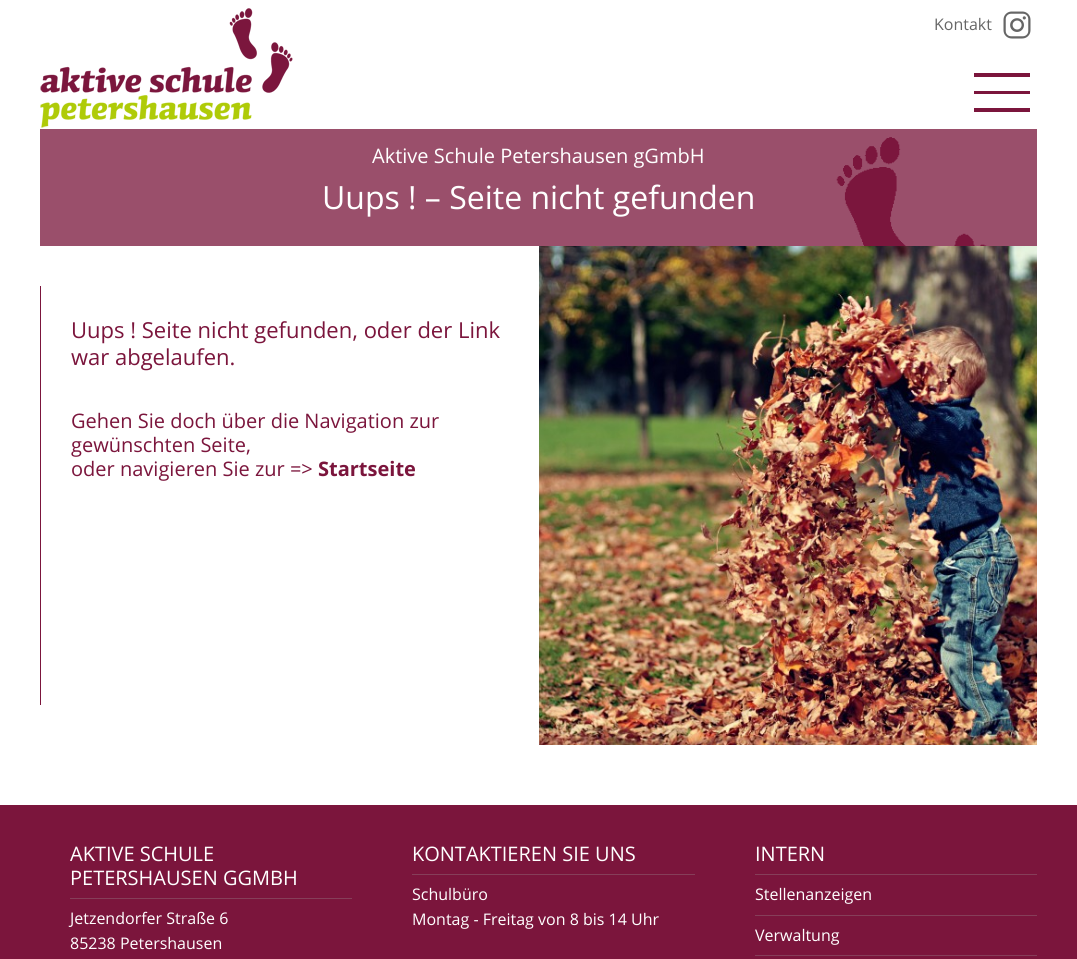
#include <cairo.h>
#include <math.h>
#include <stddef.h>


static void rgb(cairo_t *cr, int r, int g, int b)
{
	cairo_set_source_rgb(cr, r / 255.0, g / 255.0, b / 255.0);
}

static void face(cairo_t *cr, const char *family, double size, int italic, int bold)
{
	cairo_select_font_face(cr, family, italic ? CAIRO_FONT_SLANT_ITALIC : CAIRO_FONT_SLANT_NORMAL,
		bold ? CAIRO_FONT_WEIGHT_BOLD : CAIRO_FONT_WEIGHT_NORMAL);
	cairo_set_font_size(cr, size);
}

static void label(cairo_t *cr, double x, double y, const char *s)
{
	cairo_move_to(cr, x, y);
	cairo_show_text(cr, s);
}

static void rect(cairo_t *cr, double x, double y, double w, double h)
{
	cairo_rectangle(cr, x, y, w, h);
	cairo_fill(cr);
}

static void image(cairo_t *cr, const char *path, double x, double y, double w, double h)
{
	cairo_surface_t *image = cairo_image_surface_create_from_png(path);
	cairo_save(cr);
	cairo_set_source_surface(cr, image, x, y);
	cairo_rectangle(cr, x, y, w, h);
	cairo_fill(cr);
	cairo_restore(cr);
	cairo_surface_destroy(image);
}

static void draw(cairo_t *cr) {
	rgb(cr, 255, 255, 255);
	cairo_paint(cr);
	image(cr, "image0.png", 40, 8, 253, 120);
	rgb(cr, 123, 21, 60);
	rect(cr, 974, 73, 56, 4);
	rect(cr, 974, 91, 56, 3);
	rect(cr, 974, 108, 56, 4);
	face(cr, "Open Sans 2", 16, 0, 0);
	rgb(cr, 102, 102, 102);
	label(cr, 934, 30, "Kontakt");
	image(cr, "image1.png", 1003, 11, 28, 28);
	rgb(cr, 154, 79, 107);
	rect(cr, 40, 129, 997, 117);
	image(cr, "image2.png", 836, 137, 151, 109);
	face(cr, "Open Sans 2", 20, 0, 0);
	rgb(cr, 255, 255, 255);
	label(cr, 372, 163, "Aktive Schule Petershausen gGmbH");
	face(cr, "Open Sans", 32, 0, 0);
	label(cr, 322, 209, "Uups ! – Seite nicht gefunden");
	rgb(cr, 123, 21, 60);
	rect(cr, 40, 286, 1, 419);
	face(cr, "Open Sans", 22, 0, 0);
	label(cr, 71, 338, "Uups ! Seite nicht gefunden, oder der Link");
	label(cr, 71, 365, "war abgelaufen.");
	face(cr, "Open Sans 2", 20, 0, 0);
	label(cr, 71, 428, "Gehen Sie doch über die Navigation zur");
	label(cr, 71, 452, "gewünschten Seite,");
	label(cr, 71, 476, "oder navigieren Sie zur =>");
	face(cr, "Open Sans", 20, 0, 1);
	label(cr, 318, 476, "Startseite");
	image(cr, "image3.png", 539, 246, 498, 499);
	rect(cr, 0, 805, 1077, 154);
	rgb(cr, 134, 62, 89);
	rect(cr, 70, 898, 282, 1);
	face(cr, "Open Sans", 20, 0, 0);
	rgb(cr, 255, 255, 255);
	label(cr, 70, 861, "AKTIVE SCHULE");
	label(cr, 70, 885, "PETERSHAUSEN GGMBH");
	face(cr, "Open Sans 2", 16, 0, 0);
	label(cr, 70, 924, "Jetzendorfer Straße 6");
	label(cr, 70, 949, "85238 Petershausen");
	rgb(cr, 134, 62, 89);
	rect(cr, 412, 874, 283, 1);
	face(cr, "Open Sans", 20, 0, 0);
	rgb(cr, 255, 255, 255);
	label(cr, 412, 861, "KONTAKTIEREN SIE UNS");
	face(cr, "Open Sans 2", 16, 0, 0);
	label(cr, 412, 900, "Schulbüro");
	label(cr, 412, 925, "Montag - Freitag von 8 bis 14 Uhr");
	rgb(cr, 134, 62, 89);
	rect(cr, 755, 874, 282, 1);
	face(cr, "Open Sans", 20, 0, 0);
	rgb(cr, 255, 255, 255);
	label(cr, 755, 861, "INTERN");
	rgb(cr, 134, 62, 89);
	rect(cr, 755, 915, 282, 1);
	face(cr, "Open Sans 2", 16, 0, 0);
	rgb(cr, 255, 255, 255);
	label(cr, 755, 900, "Stellenanzeigen");
	rgb(cr, 134, 62, 89);
	rect(cr, 755, 955, 282, 1);
	rgb(cr, 255, 255, 255);
	label(cr, 755, 941, "Verwaltung");
}

int main(void) {
	cairo_surface_t *surface = cairo_image_surface_create(CAIRO_FORMAT_RGB24, 1077, 959);
	cairo_t *cr = cairo_create(surface);
	cairo_font_options_t *options = cairo_font_options_create();
	cairo_font_options_set_hint_metrics(options, CAIRO_HINT_METRICS_OFF);
	cairo_font_options_set_hint_style(options, CAIRO_HINT_STYLE_NONE);
	cairo_set_font_options(cr, options);
	cairo_set_miter_limit(cr, 4);
	draw(cr);
	cairo_surface_write_to_png(surface, "render.png");
	cairo_font_options_destroy(options);
	cairo_destroy(cr);
	cairo_surface_destroy(surface);
	return 0;
}
